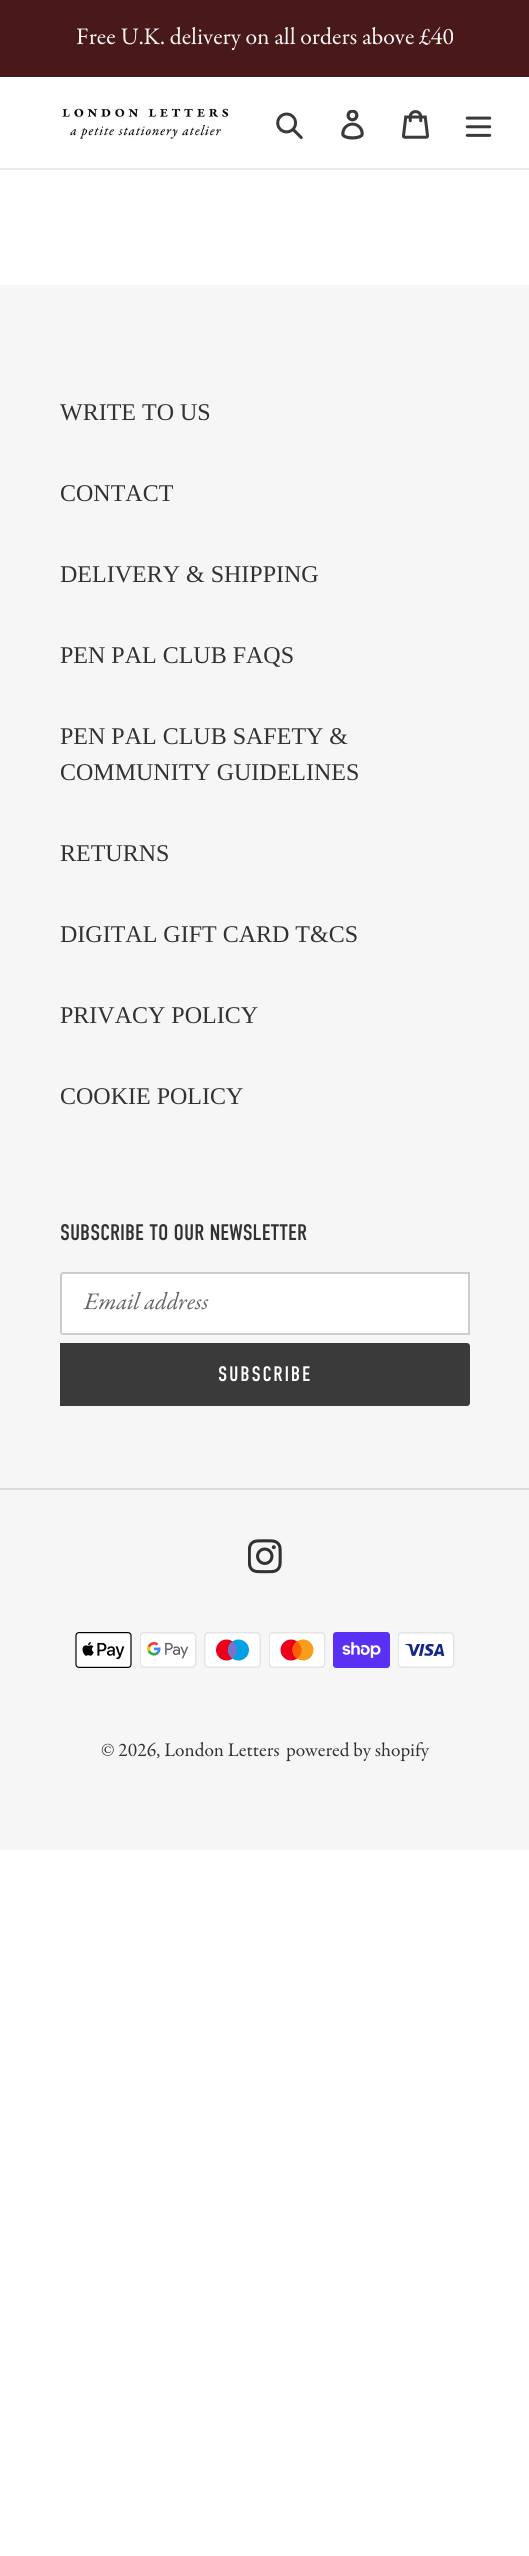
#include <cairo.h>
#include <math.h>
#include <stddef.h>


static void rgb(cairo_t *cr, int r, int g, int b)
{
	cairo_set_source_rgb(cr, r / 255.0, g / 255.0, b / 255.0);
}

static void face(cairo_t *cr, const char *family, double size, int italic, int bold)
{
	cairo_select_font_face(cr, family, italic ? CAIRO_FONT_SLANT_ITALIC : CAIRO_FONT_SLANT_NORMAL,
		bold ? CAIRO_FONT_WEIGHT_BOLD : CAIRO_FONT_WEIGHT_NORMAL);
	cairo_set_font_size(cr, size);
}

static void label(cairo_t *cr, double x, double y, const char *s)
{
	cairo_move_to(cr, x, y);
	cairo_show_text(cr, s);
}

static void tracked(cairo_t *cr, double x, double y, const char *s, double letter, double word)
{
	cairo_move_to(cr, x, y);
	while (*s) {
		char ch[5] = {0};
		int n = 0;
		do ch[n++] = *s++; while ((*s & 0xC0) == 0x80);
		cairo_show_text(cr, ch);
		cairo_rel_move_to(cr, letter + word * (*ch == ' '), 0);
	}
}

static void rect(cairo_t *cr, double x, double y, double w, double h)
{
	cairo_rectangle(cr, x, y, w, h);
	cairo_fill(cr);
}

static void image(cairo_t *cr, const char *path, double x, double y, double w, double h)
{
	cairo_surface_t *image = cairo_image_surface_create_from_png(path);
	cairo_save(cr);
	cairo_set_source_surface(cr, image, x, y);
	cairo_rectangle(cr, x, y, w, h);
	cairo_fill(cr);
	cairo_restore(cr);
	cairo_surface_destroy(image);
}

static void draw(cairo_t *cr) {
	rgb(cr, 255, 255, 255);
	cairo_paint(cr);
	rgb(cr, 73, 25, 25);
	rect(cr, 0, 0, 529, 77);
	face(cr, "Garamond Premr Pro", 24, 0, 0);
	rgb(cr, 246, 246, 246);
	label(cr, 76, 44, "Free U.K. delivery on all orders above £40");
	rgb(cr, 235, 235, 235);
	rect(cr, 0, 168, 529, 2);
	image(cr, "image0.png", 62, 108, 167, 31);
	image(cr, "image1.png", 276, 112, 27, 28);
	image(cr, "image2.png", 341, 110, 23, 30);
	image(cr, "image3.png", 402, 110, 27, 29);
	image(cr, "image4.png", 465, 116, 27, 21);
	rgb(cr, 246, 246, 246);
	rect(cr, 0, 285, 529, 1565);
	face(cr, "Liberation Serif", 24, 0, 0);
	rgb(cr, 51, 50, 50);
	label(cr, 60, 420, "WRITE TO US");
	label(cr, 60, 501, "CONTACT");
	label(cr, 60, 582, "DELIVERY & SHIPPING");
	label(cr, 60, 663, "PEN PAL CLUB FAQS");
	label(cr, 60, 744, "PEN PAL CLUB SAFETY &");
	label(cr, 60, 780, "COMMUNITY GUIDELINES");
	label(cr, 60, 861, "RETURNS");
	label(cr, 60, 942, "DIGITAL GIFT CARD T&CS");
	label(cr, 60, 1023, "PRIVACY POLICY");
	label(cr, 60, 1104, "COOKIE POLICY");
	face(cr, "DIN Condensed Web", 22.5, 0, 0);
	label(cr, 60, 1240, "SUBSCRIBE TO OUR NEWSLETTER");
	rgb(cr, 255, 255, 255);
	cairo_new_path(cr);
	cairo_move_to(cr, 63, 1273);
	cairo_line_to(cr, 469, 1273);
	cairo_line_to(cr, 469, 1334);
	cairo_line_to(cr, 63, 1334);
	cairo_curve_to(cr, 62, 1334, 61, 1333, 61, 1332);
	cairo_line_to(cr, 61, 1275);
	cairo_curve_to(cr, 61, 1274, 62, 1273, 63, 1273);
	cairo_close_path(cr);
	cairo_fill_preserve(cr);
	rgb(cr, 204, 204, 204);
	cairo_stroke(cr);
	face(cr, "Garamond Premr Pro", 24, 1, 0);
	rgb(cr, 102, 102, 102);
	label(cr, 84, 1309, "Email address");
	rgb(cr, 58, 58, 58);
	cairo_new_path(cr);
	cairo_move_to(cr, 60, 1343);
	cairo_line_to(cr, 467, 1343);
	cairo_curve_to(cr, 468.5, 1343, 470, 1344.5, 470, 1346);
	cairo_line_to(cr, 470, 1403);
	cairo_curve_to(cr, 470, 1404.5, 468.5, 1406, 467, 1406);
	cairo_line_to(cr, 60, 1406);
	cairo_close_path(cr);
	cairo_fill(cr);
	face(cr, "DIN Condensed Web", 21, 0, 0);
	rgb(cr, 255, 255, 255);
	tracked(cr, 218, 1381, "SUBSCRIBE", 1.75, 0);
	rgb(cr, 221, 221, 221);
	rect(cr, 0, 1488, 529, 2);
	image(cr, "image5.png", 248, 1539, 34, 35);
	image(cr, "image6.png", 75, 1632, 57, 36);
	image(cr, "image7.png", 140, 1632, 57, 36);
	image(cr, "image8.png", 204, 1632, 57, 36);
	image(cr, "image9.png", 269, 1632, 57, 36);
	image(cr, "image10.png", 333, 1632, 57, 36);
	image(cr, "image11.png", 398, 1632, 57, 36);
	face(cr, "Garamond Premr Pro", 19.5, 0, 0);
	rgb(cr, 51, 50, 50);
	label(cr, 101, 1756, "© 2026, London Letters");
	label(cr, 286, 1756, "powered by shopify");
}

int main(void) {
	cairo_surface_t *surface = cairo_image_surface_create(CAIRO_FORMAT_RGB24, 529, 2556);
	cairo_t *cr = cairo_create(surface);
	cairo_font_options_t *options = cairo_font_options_create();
	cairo_font_options_set_hint_metrics(options, CAIRO_HINT_METRICS_OFF);
	cairo_font_options_set_hint_style(options, CAIRO_HINT_STYLE_NONE);
	cairo_set_font_options(cr, options);
	cairo_set_miter_limit(cr, 4);
	draw(cr);
	cairo_surface_write_to_png(surface, "render.png");
	cairo_font_options_destroy(options);
	cairo_destroy(cr);
	cairo_surface_destroy(surface);
	return 0;
}
